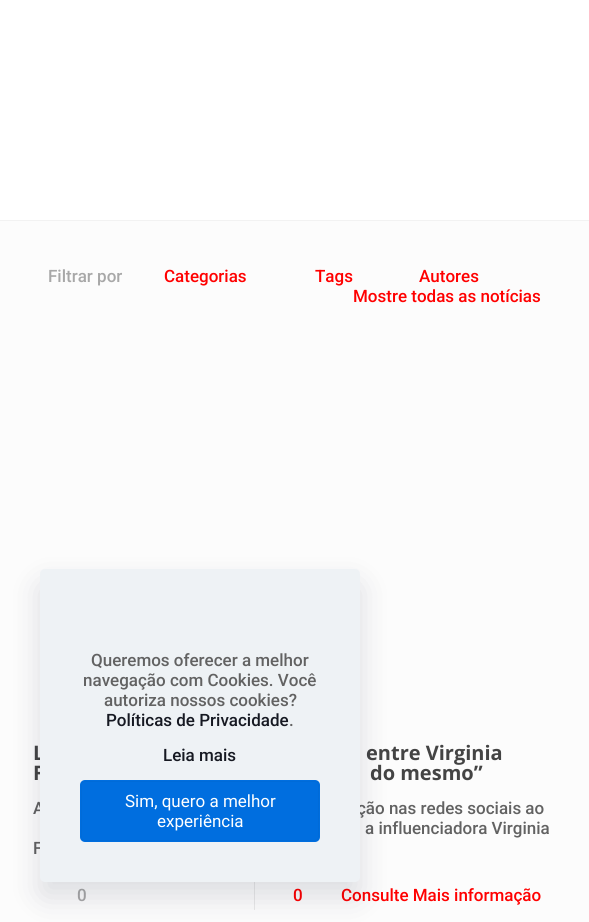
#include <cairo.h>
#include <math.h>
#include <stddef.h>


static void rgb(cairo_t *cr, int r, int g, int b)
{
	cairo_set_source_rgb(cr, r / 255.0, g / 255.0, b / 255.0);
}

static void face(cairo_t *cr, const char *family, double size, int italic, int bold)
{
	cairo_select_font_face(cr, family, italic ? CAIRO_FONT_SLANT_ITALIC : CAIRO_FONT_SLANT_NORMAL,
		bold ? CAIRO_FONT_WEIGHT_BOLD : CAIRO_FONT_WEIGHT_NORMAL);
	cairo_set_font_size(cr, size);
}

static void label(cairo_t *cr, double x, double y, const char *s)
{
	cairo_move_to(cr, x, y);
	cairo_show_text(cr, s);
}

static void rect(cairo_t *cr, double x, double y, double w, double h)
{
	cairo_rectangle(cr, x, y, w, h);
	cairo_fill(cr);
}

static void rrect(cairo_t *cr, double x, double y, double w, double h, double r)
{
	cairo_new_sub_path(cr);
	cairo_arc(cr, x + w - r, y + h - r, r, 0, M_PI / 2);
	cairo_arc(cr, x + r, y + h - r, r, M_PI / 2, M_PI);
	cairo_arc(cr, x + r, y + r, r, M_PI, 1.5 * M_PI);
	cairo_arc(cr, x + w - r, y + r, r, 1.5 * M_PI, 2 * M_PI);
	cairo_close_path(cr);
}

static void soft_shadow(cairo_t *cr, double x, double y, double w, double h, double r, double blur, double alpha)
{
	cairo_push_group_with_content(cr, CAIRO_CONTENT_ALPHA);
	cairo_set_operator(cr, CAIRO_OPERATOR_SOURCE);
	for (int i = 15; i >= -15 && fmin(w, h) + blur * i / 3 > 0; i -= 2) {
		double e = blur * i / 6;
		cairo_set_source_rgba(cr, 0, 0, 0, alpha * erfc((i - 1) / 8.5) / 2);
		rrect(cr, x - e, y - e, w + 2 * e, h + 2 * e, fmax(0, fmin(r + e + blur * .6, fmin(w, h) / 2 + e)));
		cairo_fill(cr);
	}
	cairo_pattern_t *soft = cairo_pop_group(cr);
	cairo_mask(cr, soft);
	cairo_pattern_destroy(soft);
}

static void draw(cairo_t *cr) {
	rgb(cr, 252, 252, 252);
	cairo_paint(cr);
	rgb(cr, 255, 255, 255);
	rect(cr, 0, 0, 589, 220);
	rgb(cr, 242, 242, 242);
	rect(cr, 0, 220, 589, 1);
	face(cr, "Roboto Medium", 17, 0, 0);
	rgb(cr, 168, 168, 168);
	label(cr, 48, 282, "Filtrar por");
	rgb(cr, 255, 0, 0);
	label(cr, 164, 282, "Categorias");
	label(cr, 315, 282, "Tags");
	label(cr, 419, 282, "Autores");
	label(cr, 353, 302, "Mostre todas as notícias");
	face(cr, "Open Sans", 20, 0, 1);
	rgb(cr, 68, 68, 68);
	label(cr, 33, 760, "L");
	label(cr, 366, 760, "entre Virginia");
	label(cr, 33, 780, "F");
	label(cr, 370, 780, "do mesmo”");
	face(cr, "Roboto Medium", 17, 0, 0);
	rgb(cr, 98, 98, 98);
	label(cr, 33, 814, "A");
	label(cr, 357, 814, "ção nas redes sociais ao");
	label(cr, 365, 834, "a influenciadora Virginia");
	label(cr, 33, 854, "F");
	rgb(cr, 168, 168, 168);
	label(cr, 77, 901, "0");
	rgb(cr, 232, 232, 232);
	rect(cr, 254, 880, 1, 30);
	rgb(cr, 255, 0, 0);
	label(cr, 293, 901, "0");
	label(cr, 341, 901, "Consulte Mais informação");
	rgb(cr, 1, 7, 39);
	soft_shadow(cr, 40, 584, 320, 313, 5, 15, 0.13);
	rgb(cr, 238, 242, 245);
	rrect(cr, 40, 569, 320, 313, 5);
	cairo_fill(cr);
	rgb(cr, 98, 98, 98);
	label(cr, 91, 666, "Queremos oferecer a melhor");
	label(cr, 83, 686, "navegação com Cookies. Você");
	label(cr, 104, 706, "autoriza nossos cookies?");
	rgb(cr, 22, 25, 34);
	label(cr, 106, 726, "Políticas de Privacidade");
	rgb(cr, 98, 98, 98);
	label(cr, 289, 726, ".");
	rgb(cr, 22, 25, 34);
	label(cr, 163, 761, "Leia mais");
	rgb(cr, 0, 110, 223);
	rrect(cr, 80, 780, 240, 62, 5);
	cairo_fill(cr);
	rrect(cr, 81.5, 781.5, 237, 59, 3.5);
	rgb(cr, 0, 107, 216);
	cairo_set_line_width(cr, 1);
	cairo_stroke(cr);
	face(cr, "Roboto", 17, 0, 0);
	rgb(cr, 255, 255, 255);
	label(cr, 125, 807, "Sim, quero a melhor");
	label(cr, 157, 827, "experiência");
}

int main(void) {
	cairo_surface_t *surface = cairo_image_surface_create(CAIRO_FORMAT_RGB24, 589, 922);
	cairo_t *cr = cairo_create(surface);
	cairo_font_options_t *options = cairo_font_options_create();
	cairo_font_options_set_hint_metrics(options, CAIRO_HINT_METRICS_OFF);
	cairo_font_options_set_hint_style(options, CAIRO_HINT_STYLE_NONE);
	cairo_set_font_options(cr, options);
	cairo_set_miter_limit(cr, 4);
	draw(cr);
	cairo_surface_write_to_png(surface, "render.png");
	cairo_font_options_destroy(options);
	cairo_destroy(cr);
	cairo_surface_destroy(surface);
	return 0;
}
